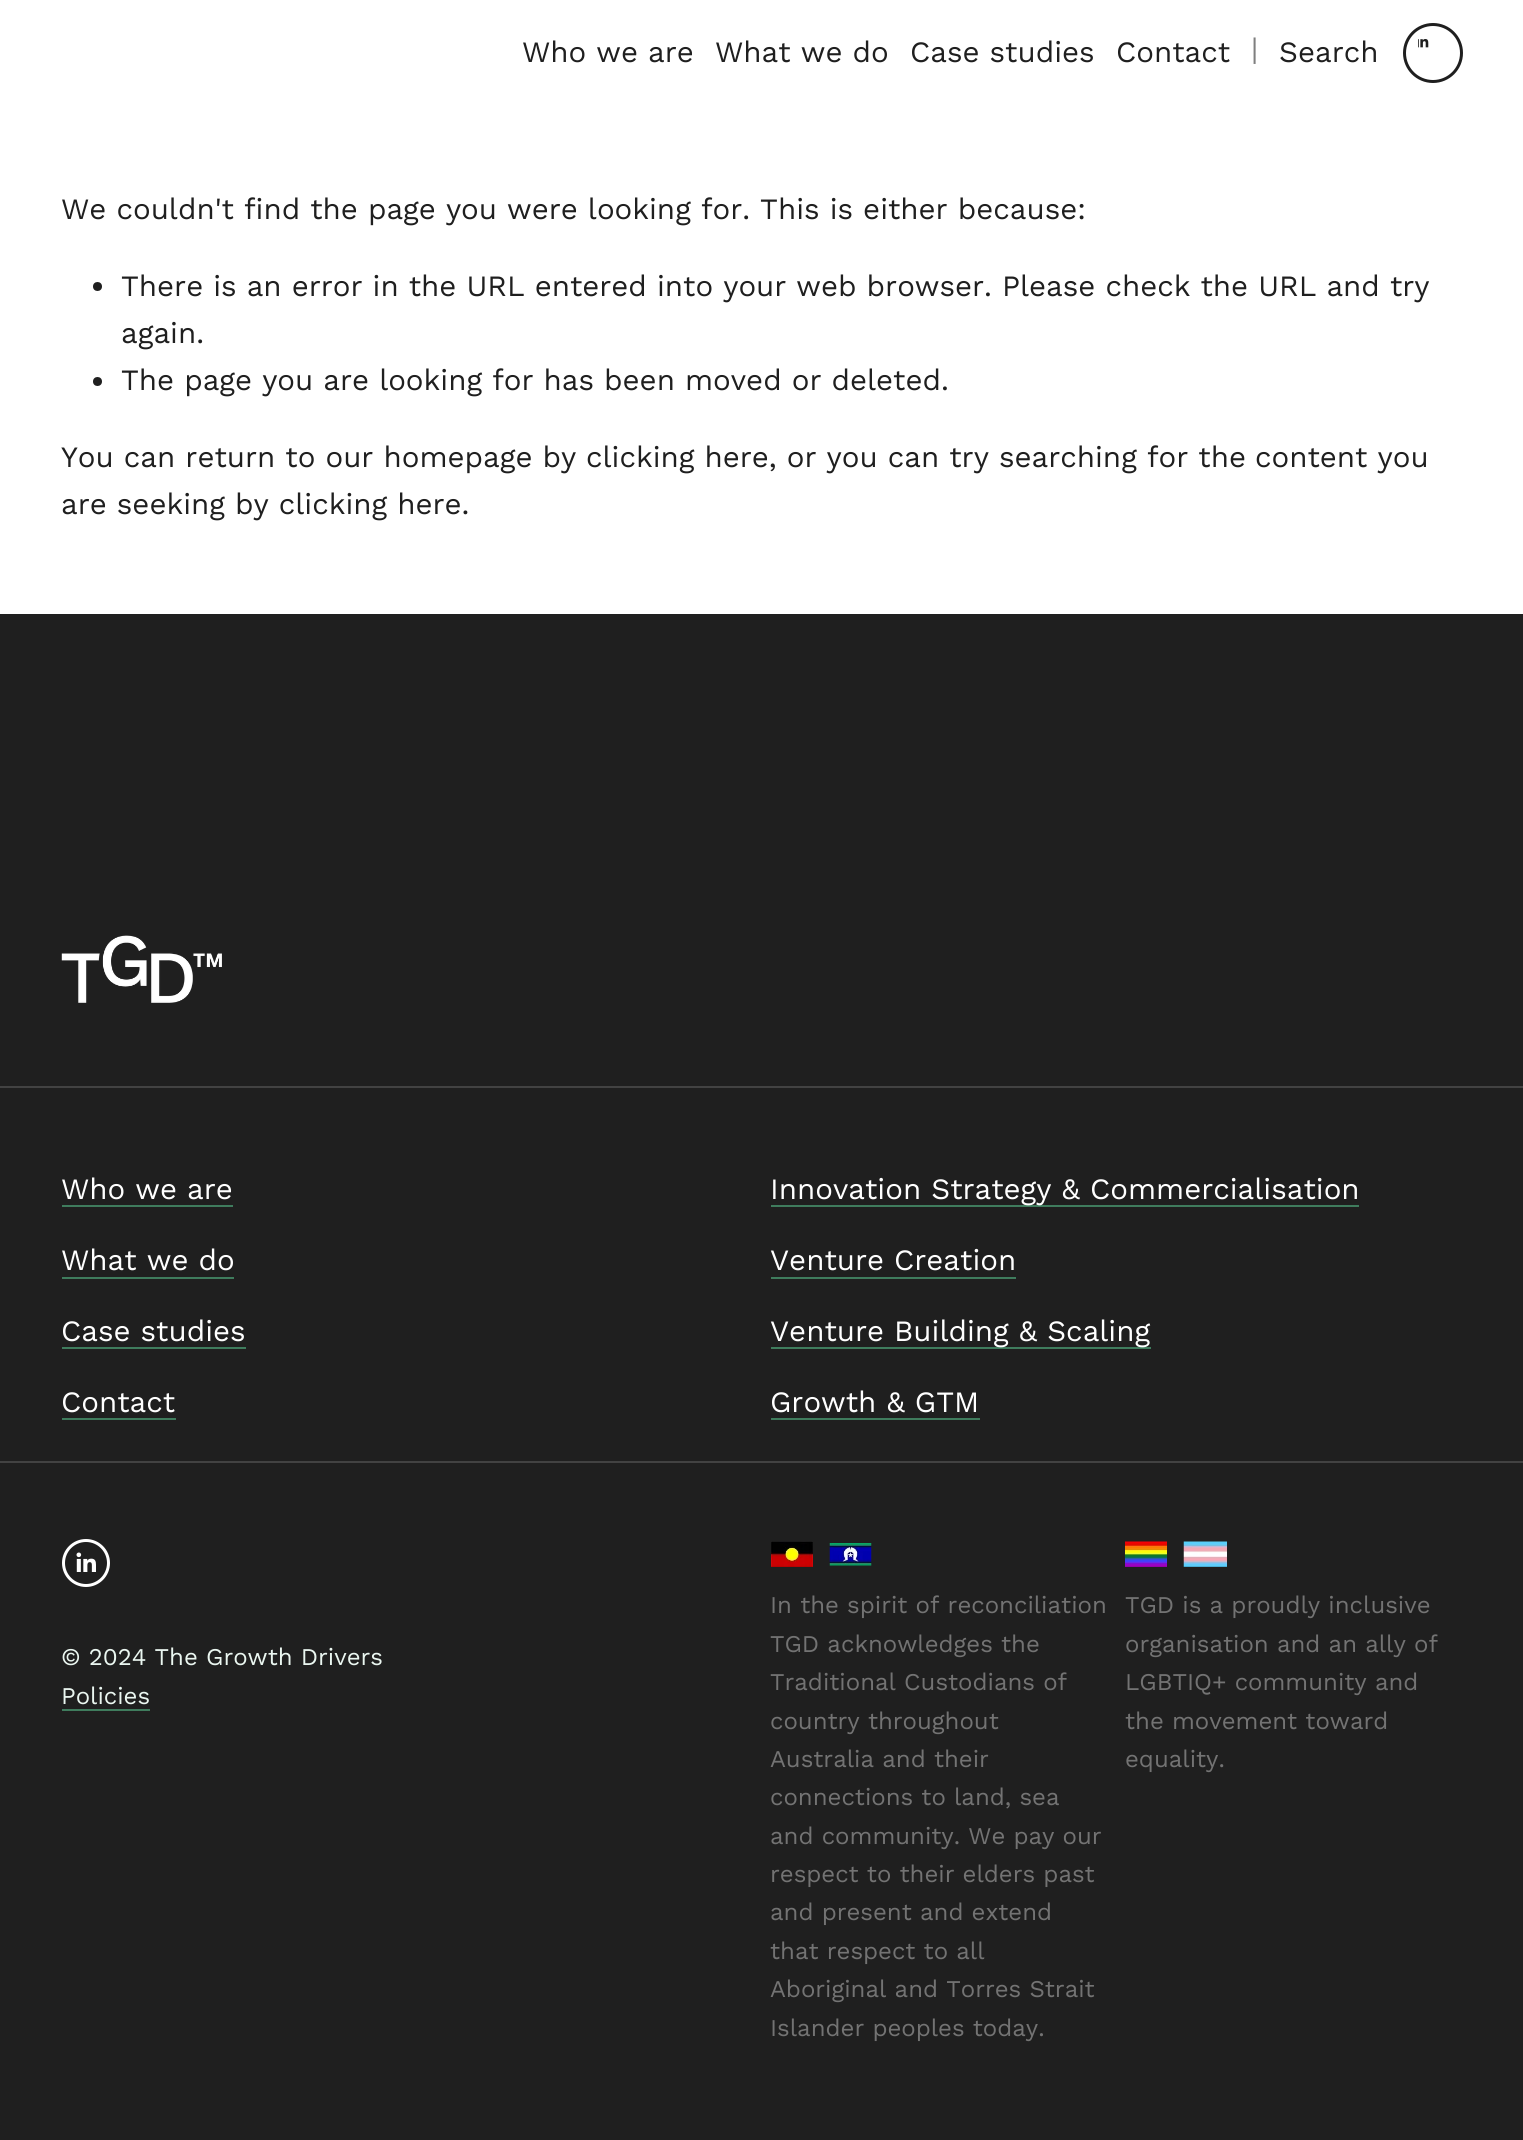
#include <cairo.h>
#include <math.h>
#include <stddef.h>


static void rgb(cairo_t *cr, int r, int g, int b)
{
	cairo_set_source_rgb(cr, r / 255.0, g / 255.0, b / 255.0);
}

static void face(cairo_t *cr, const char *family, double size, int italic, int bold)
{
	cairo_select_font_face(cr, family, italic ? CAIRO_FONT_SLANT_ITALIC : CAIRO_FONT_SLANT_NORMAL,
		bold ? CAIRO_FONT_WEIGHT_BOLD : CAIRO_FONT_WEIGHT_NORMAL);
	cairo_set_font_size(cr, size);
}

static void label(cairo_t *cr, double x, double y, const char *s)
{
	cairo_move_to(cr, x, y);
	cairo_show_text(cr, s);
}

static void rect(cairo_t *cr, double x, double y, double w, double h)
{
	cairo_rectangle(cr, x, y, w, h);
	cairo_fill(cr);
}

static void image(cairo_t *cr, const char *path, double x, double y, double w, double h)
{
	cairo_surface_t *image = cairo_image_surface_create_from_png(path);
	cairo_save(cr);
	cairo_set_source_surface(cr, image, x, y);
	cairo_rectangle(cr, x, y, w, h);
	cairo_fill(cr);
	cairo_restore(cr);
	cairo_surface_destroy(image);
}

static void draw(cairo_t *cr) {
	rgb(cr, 255, 255, 255);
	cairo_paint(cr);
	face(cr, "Work Sans", 29.5, 0, 0);
	rgb(cr, 31, 31, 31);
	label(cr, 522, 62, "Who we are");
	label(cr, 715, 62, "What we do");
	label(cr, 910, 62, "Case studies");
	label(cr, 1116, 62, "Contact");
	rgb(cr, 127, 127, 127);
	label(cr, 1251, 59, "|");
	rgb(cr, 31, 31, 31);
	label(cr, 1279, 62, "Search");
	cairo_new_path(cr);
	cairo_arc(cr, 1433, 53, 28.5, 0, 2 * M_PI);
	cairo_set_line_width(cr, 3);
	cairo_stroke(cr);
	image(cr, "image0.png", 1418, 39, 11, 9);
	label(cr, 61, 219, "We couldn't find the page you were looking for. This is either because:");
	cairo_new_path(cr);
	cairo_arc(cr, 97.5, 286.5, 4.5, 0, 2 * M_PI);
	cairo_fill(cr);
	label(cr, 121, 296, "There is an error in the URL entered into your web browser. Please check the URL and try");
	label(cr, 121, 343, "again.");
	cairo_new_path(cr);
	cairo_arc(cr, 97.5, 381.5, 4.5, 0, 2 * M_PI);
	cairo_fill(cr);
	label(cr, 121, 390, "The page you are looking for has been moved or deleted.");
	label(cr, 61, 467, "You can return to our homepage by");
	label(cr, 586, 467, "clicking here, or you can try searching for the");
	label(cr, 1255, 467, "content you");
	label(cr, 61, 514, "are seeking by clicking here.");
	rect(cr, 0, 614, 1523, 1526);
	image(cr, "image1.png", 61, 935, 161, 68);
	rgb(cr, 66, 66, 66);
	rect(cr, 0, 1086, 1523, 2);
	rgb(cr, 255, 255, 255);
	label(cr, 61, 1199, "Who we are");
	rgb(cr, 63, 124, 93);
	rect(cr, 62, 1205, 171, 2);
	rgb(cr, 255, 255, 255);
	label(cr, 61, 1270, "What we do");
	rgb(cr, 63, 124, 93);
	rect(cr, 62, 1277, 172, 2);
	rgb(cr, 255, 255, 255);
	label(cr, 61, 1341, "Case studies");
	rgb(cr, 63, 124, 93);
	rect(cr, 62, 1347, 184, 2);
	rgb(cr, 255, 255, 255);
	label(cr, 61, 1412, "Contact");
	rgb(cr, 63, 124, 93);
	rect(cr, 62, 1418, 114, 2);
	rect(cr, 771, 1205, 588, 2);
	rgb(cr, 255, 255, 255);
	label(cr, 770, 1199, "Innovation Strategy & Commercialisation");
	label(cr, 770, 1270, "Venture Creation");
	rgb(cr, 63, 124, 93);
	rect(cr, 771, 1277, 245, 2);
	rect(cr, 771, 1347, 380, 2);
	rgb(cr, 255, 255, 255);
	label(cr, 770, 1341, "Venture Building & Scaling");
	label(cr, 770, 1412, "Growth & GTM");
	rgb(cr, 63, 124, 93);
	rect(cr, 771, 1418, 209, 2);
	rgb(cr, 66, 66, 66);
	rect(cr, 0, 1461, 1523, 2);
	cairo_new_path(cr);
	cairo_arc(cr, 86, 1563, 22.5, 0, 2 * M_PI);
	rgb(cr, 255, 255, 255);
	cairo_stroke(cr);
	image(cr, "image2.png", 76, 1552, 20, 20);
	image(cr, "image3.png", 771, 1541, 42, 26);
	image(cr, "image4.png", 829, 1543, 43, 23);
	image(cr, "image5.png", 1125, 1541, 42, 26);
	image(cr, "image6.png", 1183, 1541, 44, 26);
	face(cr, "Work Sans", 24, 0, 0);
	rgb(cr, 234, 246, 240);
	label(cr, 61, 1665, "© 2024 The Growth Drivers");
	label(cr, 61, 1704, "Policies");
	rgb(cr, 63, 124, 93);
	rect(cr, 62, 1709, 88, 2);
	rgb(cr, 115, 115, 115);
	label(cr, 770, 1613, "In the spirit of reconciliation");
	label(cr, 770, 1652, "TGD acknowledges the");
	label(cr, 770, 1690, "Traditional Custodians of");
	label(cr, 770, 1729, "country throughout");
	label(cr, 770, 1767, "Australia and their");
	label(cr, 770, 1805, "connections to land, sea");
	label(cr, 770, 1844, "and community. We pay our");
	label(cr, 770, 1882, "respect to their elders past");
	label(cr, 770, 1920, "and present and extend");
	label(cr, 770, 1959, "that respect to all");
	label(cr, 770, 1997, "Aboriginal and Torres Strait");
	label(cr, 770, 2036, "Islander peoples today.");
	label(cr, 1125, 1613, "TGD is a proudly inclusive");
	label(cr, 1125, 1652, "organisation and an ally of");
	label(cr, 1125, 1690, "LGBTIQ+ community and");
	label(cr, 1125, 1729, "the movement toward");
	label(cr, 1125, 1767, "equality.");
}

int main(void) {
	cairo_surface_t *surface = cairo_image_surface_create(CAIRO_FORMAT_RGB24, 1523, 2140);
	cairo_t *cr = cairo_create(surface);
	cairo_font_options_t *options = cairo_font_options_create();
	cairo_font_options_set_hint_metrics(options, CAIRO_HINT_METRICS_OFF);
	cairo_font_options_set_hint_style(options, CAIRO_HINT_STYLE_NONE);
	cairo_set_font_options(cr, options);
	cairo_set_miter_limit(cr, 4);
	draw(cr);
	cairo_surface_write_to_png(surface, "render.png");
	cairo_font_options_destroy(options);
	cairo_destroy(cr);
	cairo_surface_destroy(surface);
	return 0;
}
